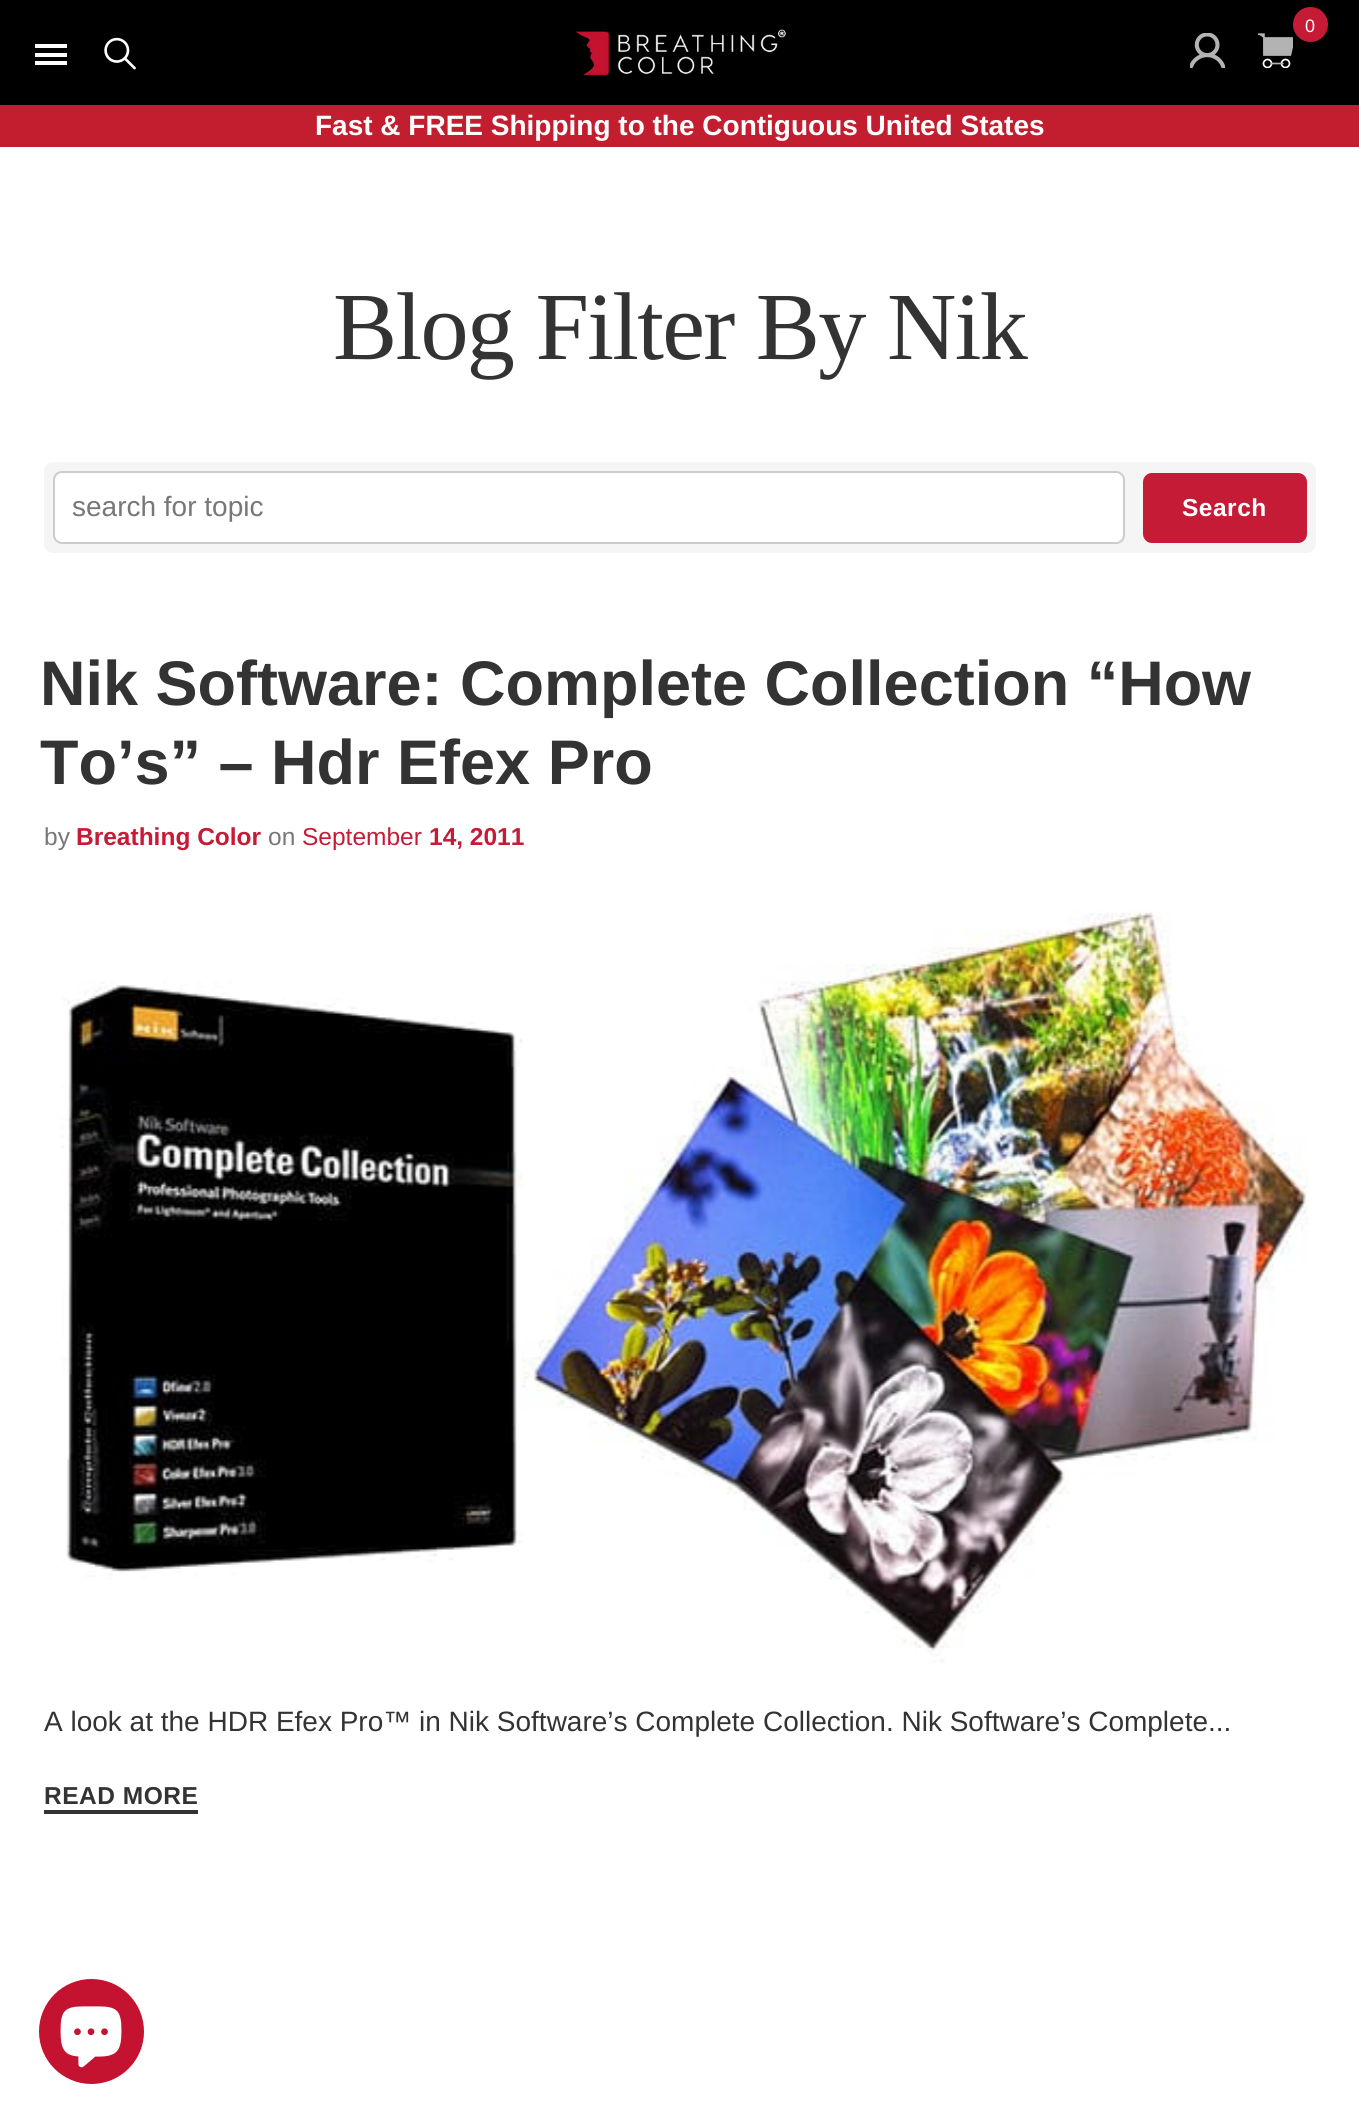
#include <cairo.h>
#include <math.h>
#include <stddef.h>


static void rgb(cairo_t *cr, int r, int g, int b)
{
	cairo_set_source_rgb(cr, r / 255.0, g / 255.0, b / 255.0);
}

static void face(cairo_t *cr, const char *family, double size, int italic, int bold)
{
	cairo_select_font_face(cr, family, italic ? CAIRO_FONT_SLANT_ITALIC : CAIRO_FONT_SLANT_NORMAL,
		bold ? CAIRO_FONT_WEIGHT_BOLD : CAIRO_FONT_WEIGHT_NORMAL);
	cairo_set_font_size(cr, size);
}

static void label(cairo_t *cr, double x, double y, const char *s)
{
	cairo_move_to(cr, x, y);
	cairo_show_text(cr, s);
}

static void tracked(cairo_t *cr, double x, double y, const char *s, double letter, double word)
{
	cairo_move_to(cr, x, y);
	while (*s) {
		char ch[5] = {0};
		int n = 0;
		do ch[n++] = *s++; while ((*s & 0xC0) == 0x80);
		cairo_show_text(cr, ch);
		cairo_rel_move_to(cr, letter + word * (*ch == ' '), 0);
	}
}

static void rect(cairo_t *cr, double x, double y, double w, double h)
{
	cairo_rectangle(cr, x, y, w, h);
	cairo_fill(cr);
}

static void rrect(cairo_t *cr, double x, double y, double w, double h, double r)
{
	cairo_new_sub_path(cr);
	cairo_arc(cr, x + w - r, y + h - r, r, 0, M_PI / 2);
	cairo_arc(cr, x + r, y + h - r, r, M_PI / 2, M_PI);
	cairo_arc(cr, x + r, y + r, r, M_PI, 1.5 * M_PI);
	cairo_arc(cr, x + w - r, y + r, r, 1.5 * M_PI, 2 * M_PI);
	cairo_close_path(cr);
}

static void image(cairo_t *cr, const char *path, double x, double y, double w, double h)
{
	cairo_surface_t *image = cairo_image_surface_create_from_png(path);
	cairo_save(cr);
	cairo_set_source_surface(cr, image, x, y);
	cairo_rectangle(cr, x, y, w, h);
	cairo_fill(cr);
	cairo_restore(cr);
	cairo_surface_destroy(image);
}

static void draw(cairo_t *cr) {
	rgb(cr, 255, 255, 255);
	cairo_paint(cr);
	rgb(cr, 0, 0, 0);
	rect(cr, 0, 0, 1359, 105);
	rgb(cr, 197, 27, 54);
	cairo_arc(cr, 1310.5, 24.5, 17.5, 0, 2 * M_PI);
	cairo_fill(cr);
	face(cr, "Liberation Sans", 18, 0, 0);
	rgb(cr, 255, 255, 255);
	label(cr, 1305, 32, "0");
	image(cr, "image0.png", 1258, 33, 35, 35);
	image(cr, "image1.png", 1190, 33, 35, 35);
	rect(cr, 35, 44, 32, 4);
	rect(cr, 35, 53, 32, 4);
	rect(cr, 35, 61, 32, 4);
	image(cr, "image2.png", 104, 37, 32, 33);
	image(cr, "image3.png", 575, 29, 211, 47);
	rgb(cr, 195, 30, 48);
	rect(cr, 0, 105, 1359, 42);
	face(cr, "Liberation Sans", 28, 0, 1);
	rgb(cr, 255, 255, 255);
	label(cr, 315, 135, "Fast & FREE Shipping to the Contiguous United States");
	face(cr, "Liberation Serif", 96.25, 0, 0);
	rgb(cr, 51, 51, 51);
	tracked(cr, 333, 359, "Blog Filter By Nik", -1.75, 0);
	rgb(cr, 245, 245, 245);
	rrect(cr, 44, 462, 1272, 91, 9);
	cairo_fill(cr);
	rgb(cr, 255, 255, 255);
	rrect(cr, 54, 472, 1070, 71, 8);
	cairo_fill_preserve(cr);
	rgb(cr, 204, 204, 204);
	cairo_stroke(cr);
	face(cr, "Liberation Sans", 28, 0, 0);
	rgb(cr, 119, 119, 119);
	label(cr, 72, 516, "search for topic");
	rgb(cr, 197, 27, 54);
	rrect(cr, 1143, 473, 164, 70, 9);
	cairo_fill(cr);
	face(cr, "Liberation Sans", 24.5, 0, 1);
	rgb(cr, 255, 255, 255);
	tracked(cr, 1182, 516, "Search", 0.5, 0);
	face(cr, "Liberation Sans", 63, 0, 1);
	rgb(cr, 51, 51, 51);
	label(cr, 40, 705, "Nik Software: Complete Collection “How");
	label(cr, 40, 784, "To’s” – Hdr Efex Pro");
	face(cr, "Liberation Sans", 24.5, 0, 0);
	rgb(cr, 119, 119, 119);
	label(cr, 44, 845, "by");
	face(cr, "Liberation Sans", 24.5, 0, 1);
	rgb(cr, 197, 27, 54);
	label(cr, 76, 845, "Breathing Color");
	face(cr, "Liberation Sans", 24.5, 0, 0);
	rgb(cr, 119, 119, 119);
	label(cr, 268, 845, "on");
	rgb(cr, 197, 27, 54);
	label(cr, 302, 845, "September");
	face(cr, "Liberation Sans", 24.5, 0, 1);
	label(cr, 429, 845, "14, 2011");
	image(cr, "image4.png", 61, 908, 1248, 755);
	face(cr, "Liberation Sans", 28, 0, 0);
	rgb(cr, 51, 51, 51);
	label(cr, 44, 1731, "A look at the HDR Efex Pro™ in Nik Software’s Complete Collection. Nik Software’s Complete...");
	rect(cr, 44, 1810, 154, 4);
	face(cr, "Liberation Sans", 24.5, 0, 1);
	tracked(cr, 44, 1804, "READ MORE", 0.5, 0);
	rgb(cr, 196, 18, 49);
	cairo_new_path(cr);
	cairo_arc(cr, 91.5, 2031.5, 52.5, 0, 2 * M_PI);
	cairo_fill(cr);
	image(cr, "image5.png", 60, 2006, 62, 62);
}

int main(void) {
	cairo_surface_t *surface = cairo_image_surface_create(CAIRO_FORMAT_RGB24, 1359, 2121);
	cairo_t *cr = cairo_create(surface);
	cairo_font_options_t *options = cairo_font_options_create();
	cairo_font_options_set_hint_metrics(options, CAIRO_HINT_METRICS_OFF);
	cairo_font_options_set_hint_style(options, CAIRO_HINT_STYLE_NONE);
	cairo_set_font_options(cr, options);
	cairo_set_miter_limit(cr, 4);
	draw(cr);
	cairo_surface_write_to_png(surface, "render.png");
	cairo_font_options_destroy(options);
	cairo_destroy(cr);
	cairo_surface_destroy(surface);
	return 0;
}
